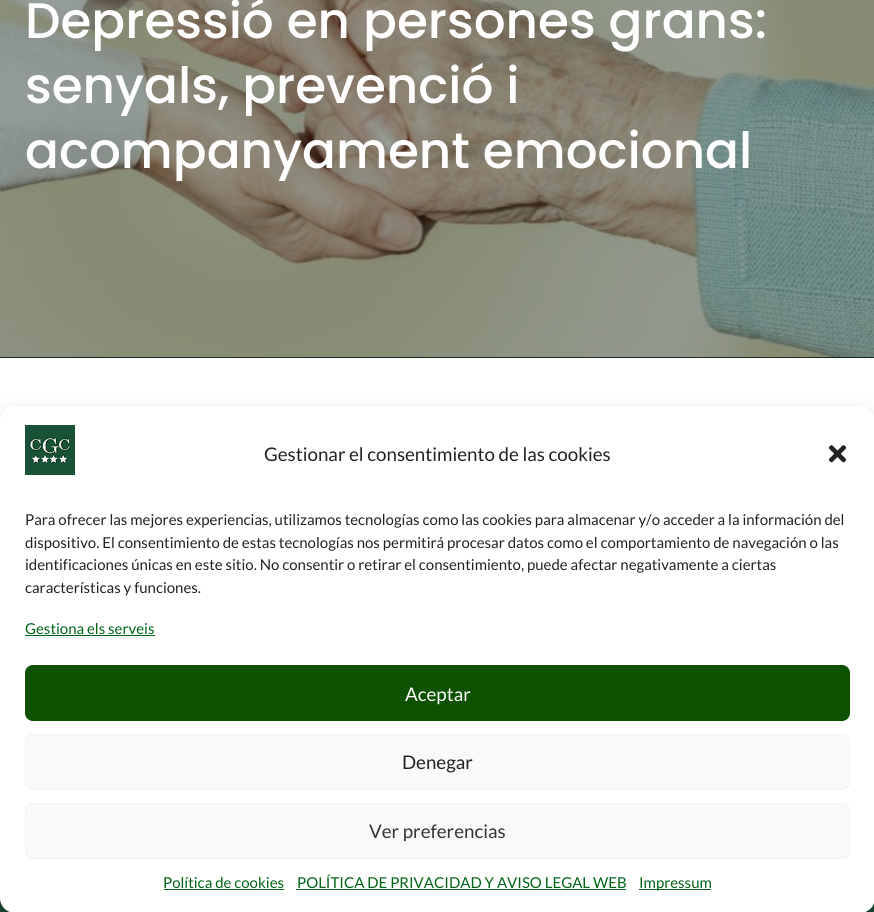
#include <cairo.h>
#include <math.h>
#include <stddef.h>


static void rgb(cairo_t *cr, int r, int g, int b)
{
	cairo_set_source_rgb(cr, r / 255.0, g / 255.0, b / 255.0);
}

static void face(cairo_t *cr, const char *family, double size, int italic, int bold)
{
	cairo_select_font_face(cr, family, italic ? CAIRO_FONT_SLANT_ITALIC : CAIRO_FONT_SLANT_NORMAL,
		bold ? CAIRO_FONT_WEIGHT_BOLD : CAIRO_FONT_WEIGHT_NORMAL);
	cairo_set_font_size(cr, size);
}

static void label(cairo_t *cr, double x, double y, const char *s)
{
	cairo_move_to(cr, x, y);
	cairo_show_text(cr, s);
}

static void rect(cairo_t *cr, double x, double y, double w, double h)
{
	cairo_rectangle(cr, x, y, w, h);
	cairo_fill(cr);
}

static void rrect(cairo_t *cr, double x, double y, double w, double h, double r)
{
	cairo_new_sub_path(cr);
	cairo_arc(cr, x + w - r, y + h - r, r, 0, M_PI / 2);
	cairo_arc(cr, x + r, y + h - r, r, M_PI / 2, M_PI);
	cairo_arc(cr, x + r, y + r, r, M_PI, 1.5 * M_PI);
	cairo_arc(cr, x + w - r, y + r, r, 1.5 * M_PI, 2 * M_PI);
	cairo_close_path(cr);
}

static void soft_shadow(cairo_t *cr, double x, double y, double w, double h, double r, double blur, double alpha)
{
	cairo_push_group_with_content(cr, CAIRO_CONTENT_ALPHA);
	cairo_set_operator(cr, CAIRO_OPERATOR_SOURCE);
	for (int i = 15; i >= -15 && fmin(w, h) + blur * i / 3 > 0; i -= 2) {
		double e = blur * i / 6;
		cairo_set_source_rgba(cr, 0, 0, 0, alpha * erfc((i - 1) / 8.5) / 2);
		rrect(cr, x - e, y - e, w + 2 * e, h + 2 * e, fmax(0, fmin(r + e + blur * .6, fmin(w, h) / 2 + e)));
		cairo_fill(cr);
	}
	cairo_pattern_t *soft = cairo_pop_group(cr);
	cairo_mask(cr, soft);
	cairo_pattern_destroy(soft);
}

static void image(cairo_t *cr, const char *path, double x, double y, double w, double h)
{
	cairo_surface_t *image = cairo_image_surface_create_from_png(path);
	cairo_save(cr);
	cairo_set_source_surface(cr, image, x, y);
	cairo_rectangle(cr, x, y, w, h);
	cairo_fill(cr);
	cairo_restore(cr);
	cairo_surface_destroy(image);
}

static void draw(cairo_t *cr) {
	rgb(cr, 255, 255, 255);
	cairo_paint(cr);
	rgb(cr, 23, 44, 32);
	rect(cr, 0, 0, 874, 358);
	image(cr, "image0.png", 0, 0, 874, 357);
	face(cr, "Poppins Medium", 50, 0, 0);
	rgb(cr, 255, 255, 255);
	label(cr, 25, 38, "Depressió en persones grans:");
	label(cr, 25, 103, "senyals, prevenció i");
	label(cr, 25, 168, "acompanyament emocional");
	rgb(cr, 27, 83, 54);
	rect(cr, 0, 898, 874, 14);
	rgb(cr, 0, 0, 0);
	soft_shadow(cr, 0, 414, 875, 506, 15, 4, 0.23);
	soft_shadow(cr, 0, 419, 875, 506, 15, 12.5, 0.19);
	rgb(cr, 255, 255, 255);
	rrect(cr, 0, 406, 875, 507, 15);
	cairo_fill(cr);
	image(cr, "image1.png", 25, 425, 50, 50);
	face(cr, "Lato", 18.75, 0, 0);
	rgb(cr, 34, 34, 34);
	label(cr, 264, 461, "Gestionar el consentimiento de las cookies");
	image(cr, "image2.png", 828, 445, 19, 18);
	face(cr, "Lato", 15, 0, 0);
	label(cr, 25, 525, "Para ofrecer las mejores experiencias, utilizamos tecnologías como las cookies para almacenar y/o acceder a la información del");
	label(cr, 25, 548, "dispositivo. El consentimiento de estas tecnologías nos permitirá procesar datos como el comportamiento de navegación o las");
	label(cr, 25, 570, "identificaciones únicas en este sitio. No consentir o retirar el consentimiento, puede afectar negativamente a ciertas");
	label(cr, 25, 593, "características y funciones.");
	rgb(cr, 0, 99, 22);
	label(cr, 25, 634, "Gestiona els serveis");
	rect(cr, 25, 635, 130, 1);
	rgb(cr, 14, 81, 0);
	rrect(cr, 25.5, 665.5, 824, 55, 7.5);
	cairo_fill_preserve(cr);
	cairo_set_line_width(cr, 1);
	cairo_stroke(cr);
	face(cr, "Lato", 18.75, 0, 0);
	rgb(cr, 255, 255, 255);
	label(cr, 405, 701, "Aceptar");
	rgb(cr, 249, 249, 249);
	rrect(cr, 25.5, 734.5, 824, 55, 7.5);
	cairo_fill_preserve(cr);
	rgb(cr, 242, 242, 242);
	cairo_stroke(cr);
	rgb(cr, 34, 34, 34);
	label(cr, 402, 769, "Denegar");
	rgb(cr, 249, 249, 249);
	rrect(cr, 25.5, 803.5, 824, 55, 7.5);
	cairo_fill_preserve(cr);
	rgb(cr, 242, 242, 242);
	cairo_stroke(cr);
	rgb(cr, 51, 51, 51);
	label(cr, 369, 838, "Ver preferencias");
	face(cr, "Lato", 15, 0, 0);
	rgb(cr, 0, 99, 22);
	label(cr, 163, 888, "Política de cookies");
	rect(cr, 164, 889, 120, 1);
	label(cr, 297, 888, "POLÍTICA DE PRIVACIDAD Y AVISO LEGAL WEB");
	rect(cr, 296, 889, 330, 1);
	rect(cr, 639, 889, 72, 1);
	label(cr, 639, 888, "Impressum");
}

int main(void) {
	cairo_surface_t *surface = cairo_image_surface_create(CAIRO_FORMAT_RGB24, 874, 912);
	cairo_t *cr = cairo_create(surface);
	cairo_font_options_t *options = cairo_font_options_create();
	cairo_font_options_set_hint_metrics(options, CAIRO_HINT_METRICS_OFF);
	cairo_font_options_set_hint_style(options, CAIRO_HINT_STYLE_NONE);
	cairo_set_font_options(cr, options);
	cairo_set_miter_limit(cr, 4);
	draw(cr);
	cairo_surface_write_to_png(surface, "render.png");
	cairo_font_options_destroy(options);
	cairo_destroy(cr);
	cairo_surface_destroy(surface);
	return 0;
}
